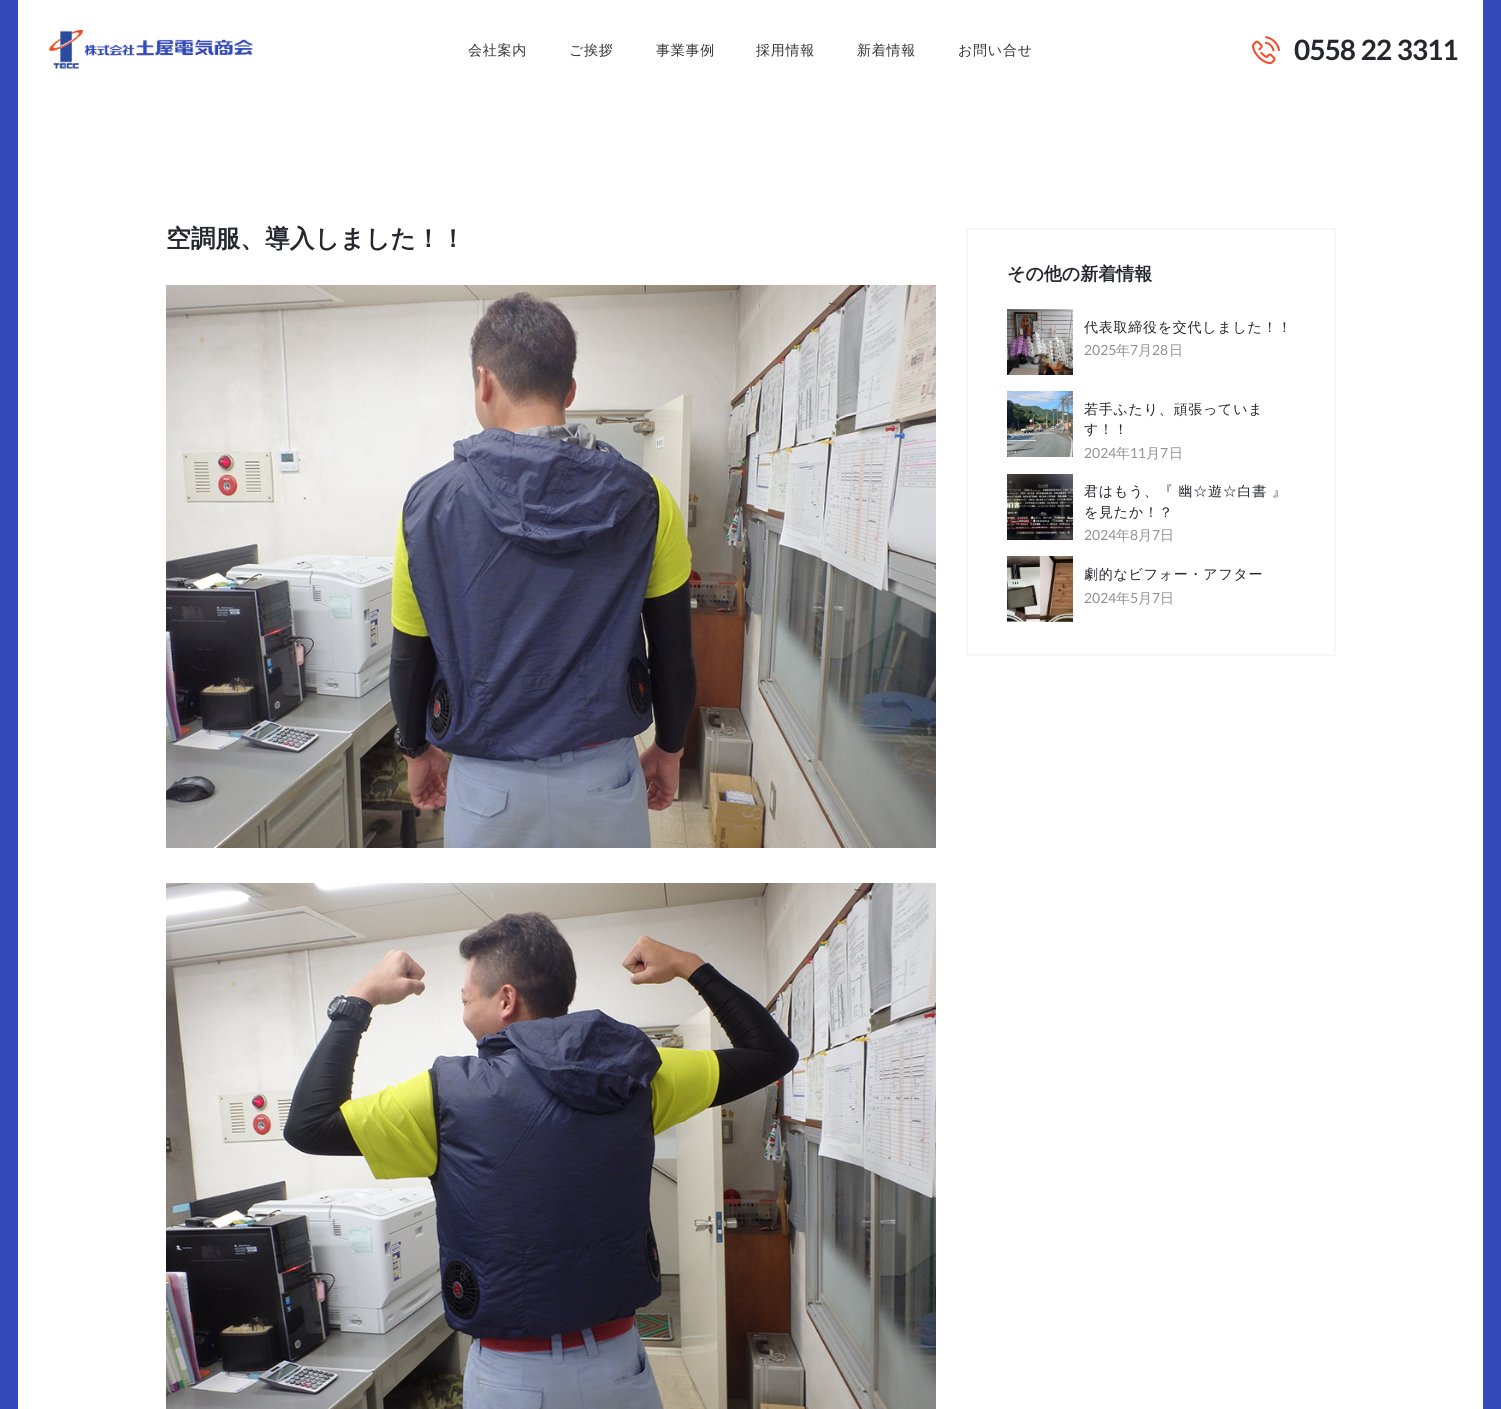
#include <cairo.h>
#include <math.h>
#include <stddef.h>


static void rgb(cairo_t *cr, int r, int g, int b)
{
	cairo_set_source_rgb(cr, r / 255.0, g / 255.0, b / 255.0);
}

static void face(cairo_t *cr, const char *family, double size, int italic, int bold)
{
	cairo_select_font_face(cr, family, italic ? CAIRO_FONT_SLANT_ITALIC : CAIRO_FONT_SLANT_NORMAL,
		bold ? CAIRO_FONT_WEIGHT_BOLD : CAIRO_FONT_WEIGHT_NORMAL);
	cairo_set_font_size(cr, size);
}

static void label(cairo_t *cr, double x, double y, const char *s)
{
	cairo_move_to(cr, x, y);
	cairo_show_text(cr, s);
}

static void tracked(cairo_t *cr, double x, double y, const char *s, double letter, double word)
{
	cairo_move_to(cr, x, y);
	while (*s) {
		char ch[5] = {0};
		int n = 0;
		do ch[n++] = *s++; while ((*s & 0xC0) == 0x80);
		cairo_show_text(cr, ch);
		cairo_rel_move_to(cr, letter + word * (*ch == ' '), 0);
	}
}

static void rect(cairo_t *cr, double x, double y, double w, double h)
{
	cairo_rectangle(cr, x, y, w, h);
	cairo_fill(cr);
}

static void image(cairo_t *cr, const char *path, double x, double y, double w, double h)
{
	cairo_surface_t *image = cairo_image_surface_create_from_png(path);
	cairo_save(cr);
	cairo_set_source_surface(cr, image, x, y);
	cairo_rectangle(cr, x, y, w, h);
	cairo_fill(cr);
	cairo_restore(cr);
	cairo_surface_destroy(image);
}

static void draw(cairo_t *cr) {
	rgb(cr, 52, 74, 186);
	cairo_paint(cr);
	rgb(cr, 255, 255, 255);
	rect(cr, 18, 0, 1465, 1409);
	image(cr, "image0.png", 48, 29, 205, 40);
	face(cr, "WenQuanYi Zen Hei Medium", 14, 0, 0);
	rgb(cr, 51, 51, 51);
	tracked(cr, 468, 55, "会社案内", 0.75, 0);
	tracked(cr, 569, 55, "ご挨拶", 0.75, 0);
	tracked(cr, 656, 55, "事業事例", 0.75, 0);
	tracked(cr, 756, 55, "採用情報", 0.75, 0);
	tracked(cr, 857, 55, "新着情報", 0.75, 0);
	tracked(cr, 958, 55, "お問い合せ", 0.75, 0);
	image(cr, "image1.png", 1252, 36, 28, 29);
	face(cr, "Lato", 28, 0, 1);
	rgb(cr, 37, 38, 46);
	tracked(cr, 1294, 60, "0558 22 3311", -1, 0);
	face(cr, "WenQuanYi Zen Hei", 24.75, 0, 1);
	label(cr, 166, 247, "空調服、導入しました！！");
	image(cr, "image2.png", 166, 285, 770, 563);
	image(cr, "image3.png", 166, 883, 770, 526);
	cairo_rectangle(cr, 967, 229, 368, 426);
	rgb(cr, 246, 246, 246);
	cairo_stroke(cr);
	face(cr, "WenQuanYi Zen Hei", 18, 0, 1);
	rgb(cr, 37, 38, 46);
	label(cr, 1007, 280, "その他の新着情報");
	image(cr, "image4.png", 1007, 309, 66, 66);
	face(cr, "WenQuanYi Zen Hei Medium", 14, 0, 0);
	tracked(cr, 1084, 332, "代表取締役を交代しました！！", 0.75, 0);
	face(cr, "Lato", 14, 0, 0);
	rgb(cr, 144, 145, 147);
	label(cr, 1084, 355, "2025");
	face(cr, "WenQuanYi Zen Hei Medium", 14, 0, 0);
	label(cr, 1116, 355, "年");
	face(cr, "Lato", 14, 0, 0);
	label(cr, 1130, 355, "7");
	face(cr, "WenQuanYi Zen Hei Medium", 14, 0, 0);
	label(cr, 1138, 355, "月");
	face(cr, "Lato", 14, 0, 0);
	label(cr, 1152, 355, "28");
	face(cr, "WenQuanYi Zen Hei Medium", 14, 0, 0);
	label(cr, 1169, 355, "日");
	image(cr, "image5.png", 1007, 391, 66, 66);
	rgb(cr, 37, 38, 46);
	tracked(cr, 1084, 414, "若手ふたり、頑張っていま", 0.75, 0);
	tracked(cr, 1084, 434, "す！！", 0.75, 0);
	face(cr, "Lato", 14, 0, 0);
	rgb(cr, 144, 145, 147);
	label(cr, 1084, 458, "2024");
	face(cr, "WenQuanYi Zen Hei Medium", 14, 0, 0);
	label(cr, 1116, 458, "年");
	face(cr, "Lato", 14, 0, 0);
	label(cr, 1130, 458, "11");
	face(cr, "WenQuanYi Zen Hei Medium", 14, 0, 0);
	label(cr, 1146, 458, "月");
	face(cr, "Lato", 14, 0, 0);
	label(cr, 1160, 458, "7");
	face(cr, "WenQuanYi Zen Hei Medium", 14, 0, 0);
	label(cr, 1169, 458, "日");
	image(cr, "image6.png", 1007, 474, 66, 66);
	rgb(cr, 37, 38, 46);
	tracked(cr, 1084, 496, "君はもう、『 幽☆遊☆白書 』", 0.75, 0);
	tracked(cr, 1084, 517, "を見たか！？", 0.75, 0);
	face(cr, "Lato", 14, 0, 0);
	rgb(cr, 144, 145, 147);
	label(cr, 1084, 540, "2024");
	face(cr, "WenQuanYi Zen Hei Medium", 14, 0, 0);
	label(cr, 1116, 540, "年");
	face(cr, "Lato", 14, 0, 0);
	label(cr, 1130, 540, "8");
	face(cr, "WenQuanYi Zen Hei Medium", 14, 0, 0);
	label(cr, 1138, 540, "月");
	face(cr, "Lato", 14, 0, 0);
	label(cr, 1152, 540, "7");
	face(cr, "WenQuanYi Zen Hei Medium", 14, 0, 0);
	label(cr, 1160, 540, "日");
	image(cr, "image7.png", 1007, 556, 66, 66);
	rgb(cr, 37, 38, 46);
	tracked(cr, 1084, 579, "劇的なビフォー・アフター", 0.75, 0);
	face(cr, "Lato", 14, 0, 0);
	rgb(cr, 144, 145, 147);
	label(cr, 1084, 603, "2024");
	face(cr, "WenQuanYi Zen Hei Medium", 14, 0, 0);
	label(cr, 1116, 603, "年");
	face(cr, "Lato", 14, 0, 0);
	label(cr, 1130, 603, "5");
	face(cr, "WenQuanYi Zen Hei Medium", 14, 0, 0);
	label(cr, 1138, 603, "月");
	face(cr, "Lato", 14, 0, 0);
	label(cr, 1152, 603, "7");
	face(cr, "WenQuanYi Zen Hei Medium", 14, 0, 0);
	label(cr, 1160, 603, "日");
}

int main(void) {
	cairo_surface_t *surface = cairo_image_surface_create(CAIRO_FORMAT_RGB24, 1501, 1409);
	cairo_t *cr = cairo_create(surface);
	cairo_font_options_t *options = cairo_font_options_create();
	cairo_font_options_set_hint_metrics(options, CAIRO_HINT_METRICS_OFF);
	cairo_font_options_set_hint_style(options, CAIRO_HINT_STYLE_NONE);
	cairo_set_font_options(cr, options);
	cairo_set_miter_limit(cr, 4);
	draw(cr);
	cairo_surface_write_to_png(surface, "render.png");
	cairo_font_options_destroy(options);
	cairo_destroy(cr);
	cairo_surface_destroy(surface);
	return 0;
}
